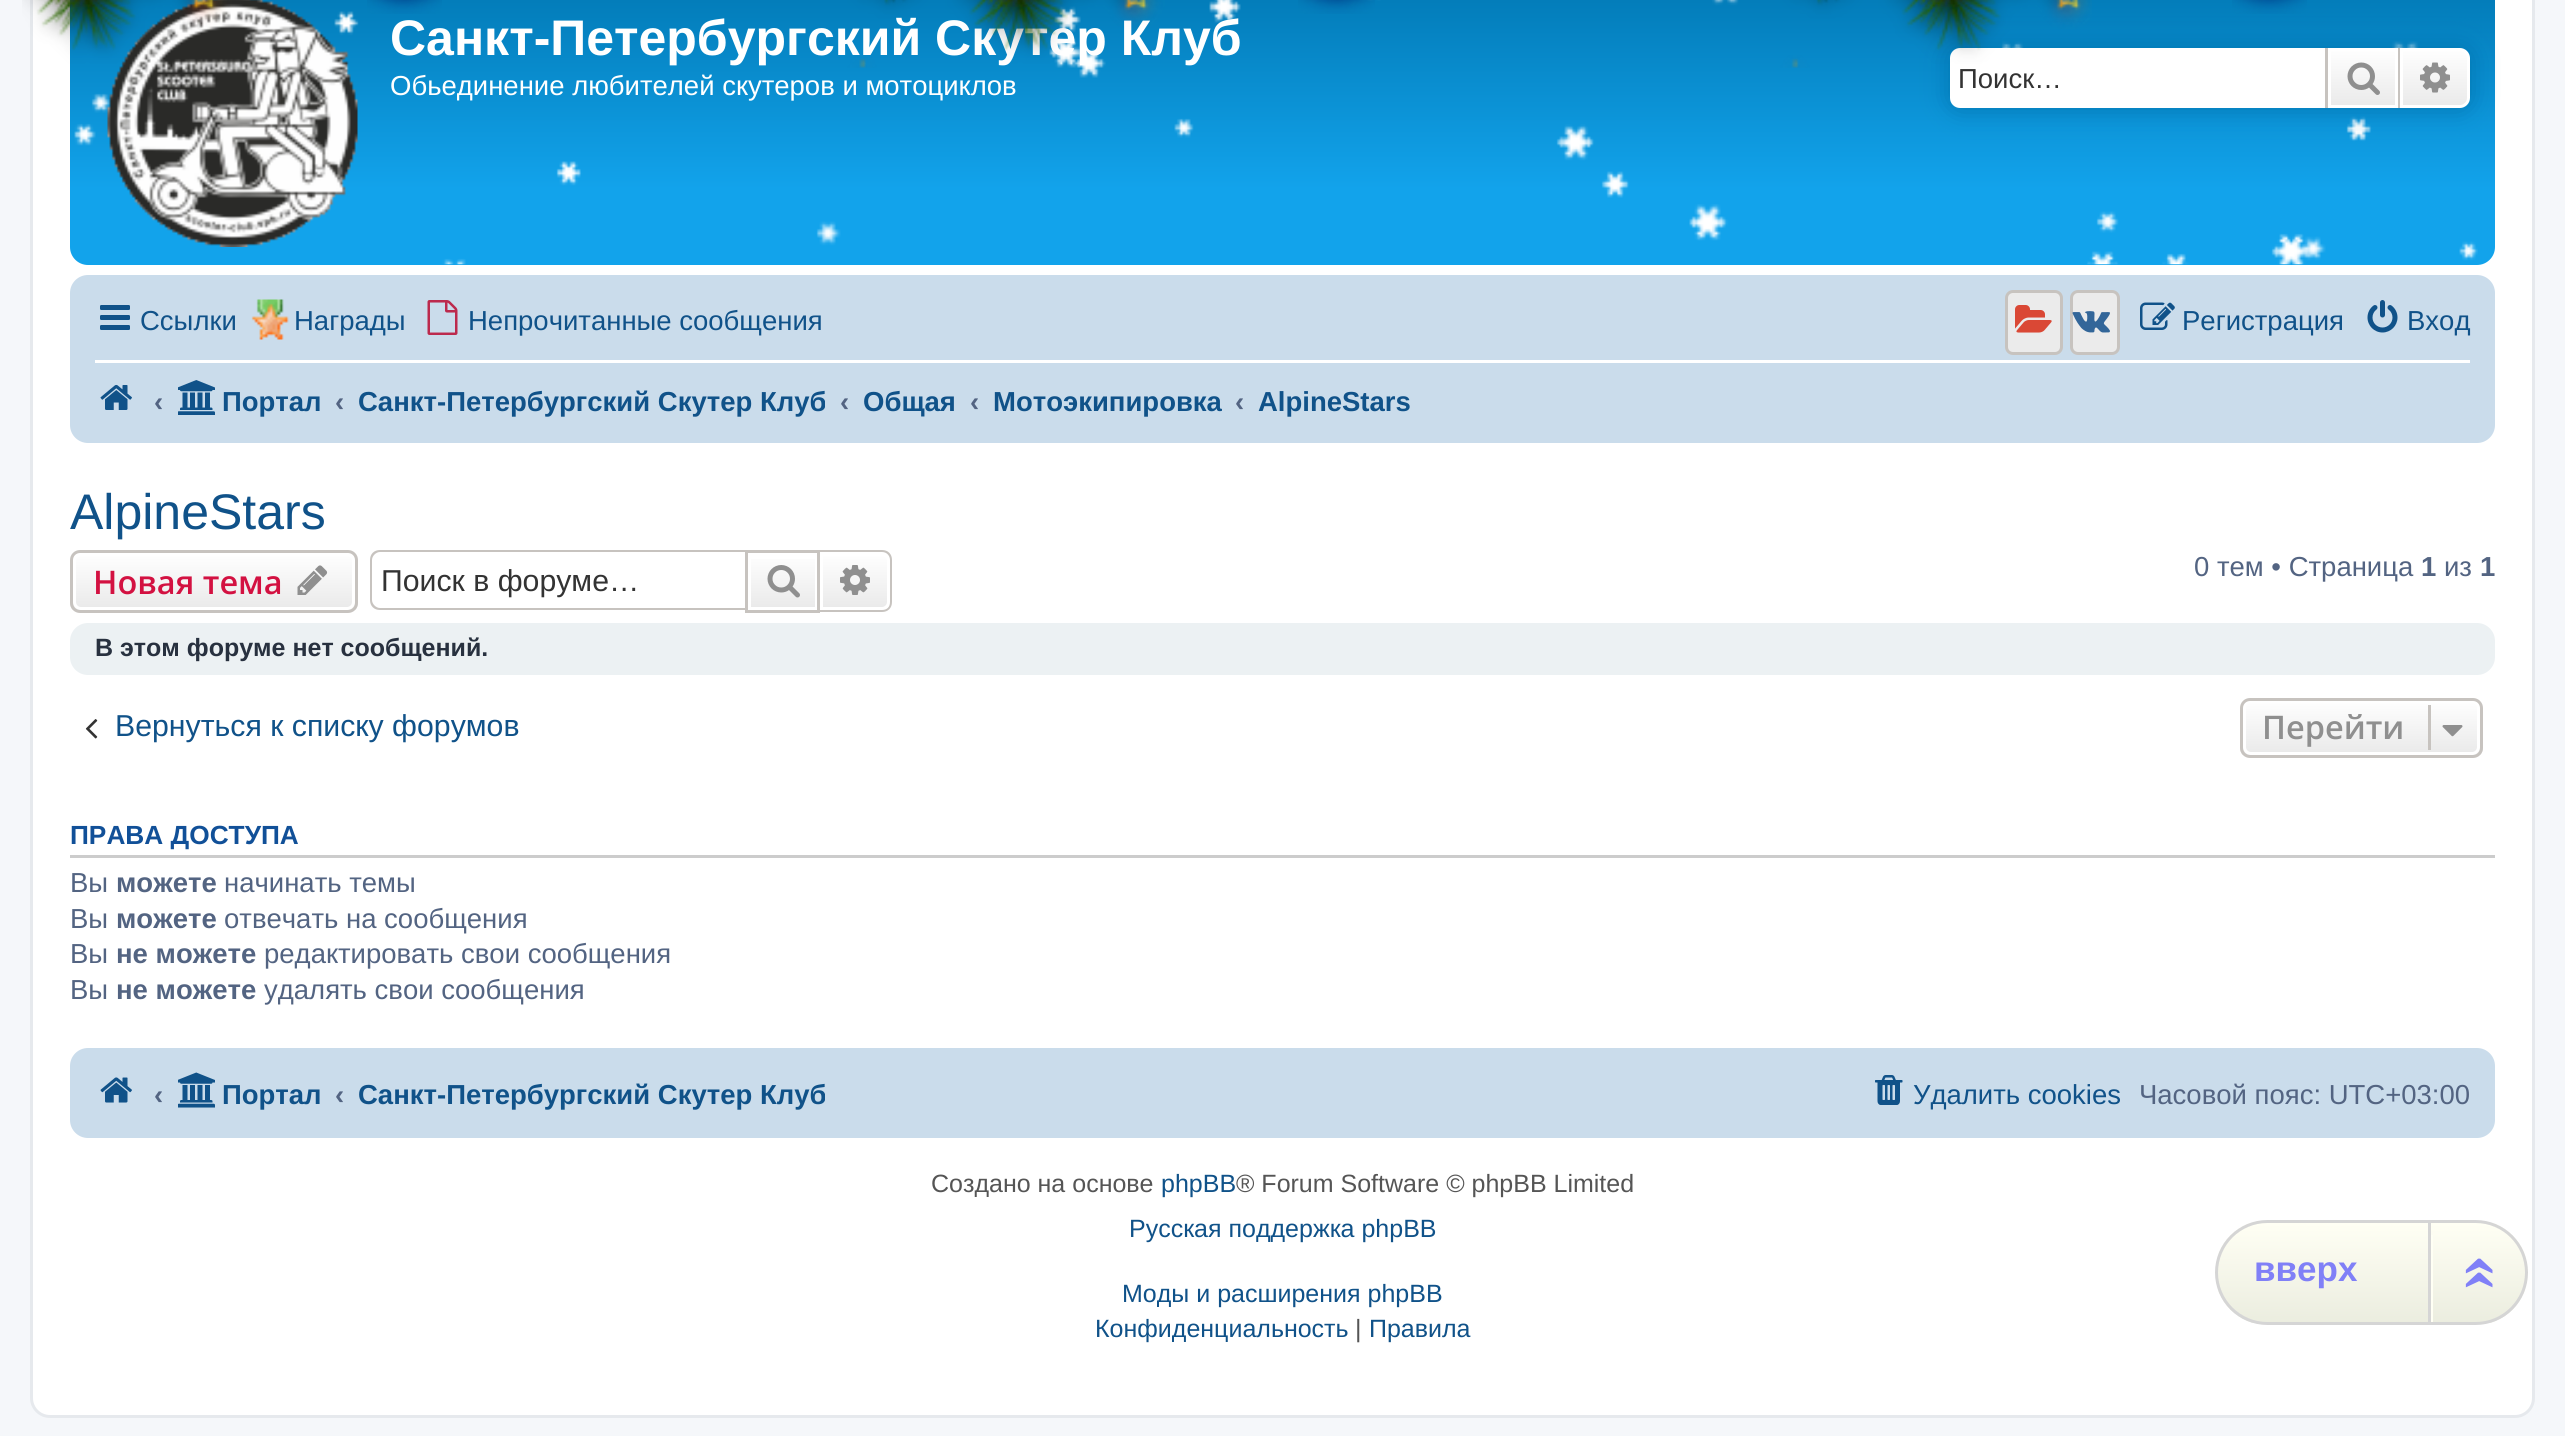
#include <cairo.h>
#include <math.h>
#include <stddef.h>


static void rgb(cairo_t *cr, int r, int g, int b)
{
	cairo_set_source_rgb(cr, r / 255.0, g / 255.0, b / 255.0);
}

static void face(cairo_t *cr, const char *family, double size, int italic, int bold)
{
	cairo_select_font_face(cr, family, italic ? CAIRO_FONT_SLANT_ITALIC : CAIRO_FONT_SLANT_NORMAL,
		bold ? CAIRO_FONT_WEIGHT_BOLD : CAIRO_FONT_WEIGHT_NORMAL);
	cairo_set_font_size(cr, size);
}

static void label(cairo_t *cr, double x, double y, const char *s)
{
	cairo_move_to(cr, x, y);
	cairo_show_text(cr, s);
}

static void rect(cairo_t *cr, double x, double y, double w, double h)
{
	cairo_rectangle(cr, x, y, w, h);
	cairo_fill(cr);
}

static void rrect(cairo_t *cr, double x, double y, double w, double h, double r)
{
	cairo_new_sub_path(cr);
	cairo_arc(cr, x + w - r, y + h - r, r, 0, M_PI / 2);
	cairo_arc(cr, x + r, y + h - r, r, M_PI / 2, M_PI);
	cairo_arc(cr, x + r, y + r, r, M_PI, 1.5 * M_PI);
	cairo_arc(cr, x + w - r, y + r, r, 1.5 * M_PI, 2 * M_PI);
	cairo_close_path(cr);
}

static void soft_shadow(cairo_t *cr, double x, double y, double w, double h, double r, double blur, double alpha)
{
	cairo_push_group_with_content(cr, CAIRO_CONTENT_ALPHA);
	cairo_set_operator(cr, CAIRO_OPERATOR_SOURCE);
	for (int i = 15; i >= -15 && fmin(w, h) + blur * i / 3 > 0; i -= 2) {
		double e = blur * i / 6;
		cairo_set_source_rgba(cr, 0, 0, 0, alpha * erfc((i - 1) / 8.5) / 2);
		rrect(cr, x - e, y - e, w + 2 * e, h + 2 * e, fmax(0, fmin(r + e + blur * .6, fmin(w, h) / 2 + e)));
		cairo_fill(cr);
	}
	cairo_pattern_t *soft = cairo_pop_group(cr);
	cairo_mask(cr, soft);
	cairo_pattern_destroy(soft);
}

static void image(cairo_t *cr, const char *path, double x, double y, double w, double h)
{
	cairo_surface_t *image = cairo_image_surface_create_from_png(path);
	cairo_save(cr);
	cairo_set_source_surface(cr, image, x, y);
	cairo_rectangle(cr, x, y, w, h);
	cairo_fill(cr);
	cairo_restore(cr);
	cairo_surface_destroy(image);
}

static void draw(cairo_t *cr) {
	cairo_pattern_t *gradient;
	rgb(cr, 245, 247, 250);
	cairo_paint(cr);
	rgb(cr, 255, 255, 255);
	rrect(cr, 31.5, -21.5, 2502, 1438, 18.5);
	cairo_fill_preserve(cr);
	rgb(cr, 230, 233, 237);
	cairo_set_line_width(cr, 3);
	cairo_stroke(cr);
	gradient = cairo_pattern_create_linear(1283, -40, 1283, 265);
	cairo_pattern_add_color_stop_rgba(gradient, 0, 0.416, 0.808, 1, 1);
	cairo_pattern_add_color_stop_rgba(gradient, 0.02, 0, 0.463, 0.694, 1);
	cairo_pattern_add_color_stop_rgba(gradient, 0.75, 0.071, 0.639, 0.922, 1);
	cairo_pattern_add_color_stop_rgba(gradient, 1, 0.071, 0.639, 0.922, 1);
	cairo_set_source(cr, gradient);
	cairo_pattern_destroy(gradient);
	rrect(cr, 70, -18, 2425, 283, 18);
	cairo_fill(cr);
	face(cr, "Liberation Sans", 50, 0, 1);
	rgb(cr, 255, 255, 255);
	label(cr, 390, 55, "Санкт-Петербургский Скутер Клуб");
	face(cr, "Liberation Sans", 27.5, 0, 0);
	label(cr, 390, 95, "Обьединение любителей скутеров и мотоциклов");
	image(cr, "image7.png", 74, 0, 2404, 265);
	image(cr, "image8.png", 107, 0, 251, 247);
	rgb(cr, 0, 117, 176);
	soft_shadow(cr, 1950, 48, 520, 60, 10, 12.5, 1);
	rgb(cr, 255, 255, 255);
	cairo_new_path(cr);
	cairo_move_to(cr, 1960, 48);
	cairo_line_to(cr, 2325, 48);
	cairo_line_to(cr, 2325, 108);
	cairo_line_to(cr, 1960, 108);
	cairo_curve_to(cr, 1954.5, 108, 1950, 103.5, 1950, 98);
	cairo_line_to(cr, 1950, 58);
	cairo_curve_to(cr, 1950, 52.5, 1954.5, 48, 1960, 48);
	cairo_close_path(cr);
	cairo_fill(cr);
	image(cr, "image0.png", 22, 0, 2070, 68);
	image(cr, "image1.png", 48, 0, 59, 7);
	image(cr, "image2.png", 367, 0, 75, 14);
	image(cr, "image3.png", 986, 0, 53, 7);
	image(cr, "image4.png", 1298, 0, 77, 14);
	image(cr, "image5.png", 1918, 0, 54, 7);
	image(cr, "image6.png", 2232, 0, 75, 14);
	rgb(cr, 51, 51, 51);
	label(cr, 1958, 88, "Поиск…");
	gradient = cairo_pattern_create_linear(2363, 48, 2363, 108);
	cairo_pattern_add_color_stop_rgba(gradient, 0, 1, 1, 1, 1);
	cairo_pattern_add_color_stop_rgba(gradient, 1, 0.914, 0.914, 0.914, 1);
	cairo_set_source(cr, gradient);
	cairo_pattern_destroy(gradient);
	rect(cr, 2331, 51, 64, 54);
	cairo_rectangle(cr, 2329.5, 49.5, 67, 57);
	rgb(cr, 255, 255, 255);
	cairo_stroke(cr);
	rgb(cr, 199, 195, 191);
	rect(cr, 2398, 48, 2, 60);
	rect(cr, 2325, 48, 3, 60);
	image(cr, "image9.png", 2347, 62, 33, 33);
	gradient = cairo_pattern_create_linear(2435, 48, 2435, 108);
	cairo_pattern_add_color_stop_rgba(gradient, 0, 1, 1, 1, 1);
	cairo_pattern_add_color_stop_rgba(gradient, 1, 0.914, 0.914, 0.914, 1);
	cairo_set_source(cr, gradient);
	cairo_pattern_destroy(gradient);
	cairo_new_path(cr);
	cairo_move_to(cr, 2401.5, 49.5);
	cairo_line_to(cr, 2460, 49.5);
	cairo_curve_to(cr, 2464.5, 49.5, 2468.5, 53.5, 2468.5, 58);
	cairo_line_to(cr, 2468.5, 98);
	cairo_curve_to(cr, 2468.5, 102.5, 2464.5, 106.5, 2460, 106.5);
	cairo_line_to(cr, 2401.5, 106.5);
	cairo_close_path(cr);
	cairo_fill_preserve(cr);
	rgb(cr, 255, 255, 255);
	cairo_stroke(cr);
	image(cr, "image10.png", 2420, 62, 30, 31);
	rgb(cr, 202, 220, 235);
	rrect(cr, 70, 275, 2425, 168, 18);
	cairo_fill(cr);
	image(cr, "image11.png", 100, 305, 30, 25);
	rgb(cr, 16, 82, 137);
	label(cr, 140, 330, "Ссылки");
	image(cr, "image12.png", 251, 299, 38, 41);
	label(cr, 294, 330, "Награды");
	image(cr, "image13.png", 427, 300, 31, 35);
	label(cr, 468, 330, "Непрочитанные сообщения");
	rgb(cr, 235, 235, 235);
	rrect(cr, 2006.5, 291.5, 55, 62, 6.5);
	cairo_fill_preserve(cr);
	rgb(cr, 199, 195, 191);
	cairo_stroke(cr);
	image(cr, "image14.png", 2015, 305, 37, 28);
	rgb(cr, 235, 235, 235);
	rrect(cr, 2071.5, 291.5, 47, 62, 6.5);
	cairo_fill_preserve(cr);
	rgb(cr, 199, 195, 191);
	cairo_stroke(cr);
	image(cr, "image15.png", 2072, 311, 38, 22);
	image(cr, "image16.png", 2140, 302, 35, 28);
	rgb(cr, 16, 82, 137);
	label(cr, 2182, 330, "Регистрация");
	image(cr, "image17.png", 2367, 300, 31, 33);
	label(cr, 2407, 330, "Вход");
	rgb(cr, 255, 255, 255);
	rect(cr, 95, 360, 2375, 3);
	image(cr, "image18.png", 100, 384, 32, 26);
	face(cr, "Liberation Sans", 27.5, 0, 1);
	rgb(cr, 83, 100, 130);
	label(cr, 154, 411, "‹");
	image(cr, "image19.png", 178, 380, 37, 35);
	rgb(cr, 16, 82, 137);
	label(cr, 222, 411, "Портал");
	rgb(cr, 83, 100, 130);
	label(cr, 335, 411, "‹");
	rgb(cr, 16, 82, 137);
	label(cr, 358, 411, "Санкт-Петербургский Скутер Клуб");
	rgb(cr, 83, 100, 130);
	label(cr, 840, 411, "‹");
	rgb(cr, 16, 82, 137);
	label(cr, 863, 411, "Общая");
	rgb(cr, 83, 100, 130);
	label(cr, 970, 411, "‹");
	rgb(cr, 16, 82, 137);
	label(cr, 993, 411, "Мотоэкипировка");
	rgb(cr, 83, 100, 130);
	label(cr, 1235, 411, "‹");
	rgb(cr, 16, 82, 137);
	label(cr, 1258, 411, "AlpineStars");
	face(cr, "Liberation Sans", 50, 0, 0);
	label(cr, 70, 529, "AlpineStars");
	cairo_save(cr);
	rrect(cr, 70, 550, 288, 63, 10);
	cairo_clip(cr);
	gradient = cairo_pattern_create_linear(214, 553, 214, 610);
	cairo_pattern_add_color_stop_rgba(gradient, 0, 1, 1, 1, 1);
	cairo_pattern_add_color_stop_rgba(gradient, 1, 0.914, 0.914, 0.914, 1);
	cairo_set_source(cr, gradient);
	cairo_pattern_destroy(gradient);
	rect(cr, 70, 553, 288, 57);
	cairo_restore(cr);
	rrect(cr, 74.5, 554.5, 279, 54, 6.5);
	rgb(cr, 255, 255, 255);
	cairo_stroke(cr);
	rrect(cr, 71.5, 551.5, 285, 60, 8.5);
	rgb(cr, 199, 195, 191);
	cairo_stroke(cr);
	face(cr, "Open Sans SemiBold", 32.5, 0, 0);
	rgb(cr, 211, 17, 65);
	label(cr, 93, 594, "Новая тема");
	image(cr, "image20.png", 297, 565, 31, 30);
	rgb(cr, 199, 195, 191);
	cairo_set_fill_rule(cr, CAIRO_FILL_RULE_EVEN_ODD);
	cairo_new_path(cr);
	cairo_move_to(cr, 380, 550);
	cairo_line_to(cr, 745, 550);
	cairo_line_to(cr, 745, 610);
	cairo_line_to(cr, 380, 610);
	cairo_curve_to(cr, 374, 610, 370, 606, 370, 600);
	cairo_line_to(cr, 370, 560);
	cairo_curve_to(cr, 370, 554, 374, 550, 380, 550);
	cairo_close_path(cr);
	cairo_move_to(cr, 380, 552);
	cairo_line_to(cr, 745, 552);
	cairo_line_to(cr, 745, 608);
	cairo_line_to(cr, 380, 608);
	cairo_curve_to(cr, 376, 608, 372, 604, 372, 600);
	cairo_line_to(cr, 372, 560);
	cairo_curve_to(cr, 372, 556, 376, 552, 380, 552);
	cairo_close_path(cr);
	cairo_fill(cr);
	face(cr, "Liberation Sans", 30.25, 0, 0);
	rgb(cr, 51, 51, 51);
	label(cr, 381, 591, "Поиск в форуме…");
	gradient = cairo_pattern_create_linear(783, 553, 783, 610);
	cairo_pattern_add_color_stop_rgba(gradient, 0, 1, 1, 1, 1);
	cairo_pattern_add_color_stop_rgba(gradient, 1, 0.914, 0.914, 0.914, 1);
	cairo_set_source(cr, gradient);
	cairo_pattern_destroy(gradient);
	rect(cr, 751, 559, 64, 48);
	cairo_rectangle(cr, 746.5, 551.5, 72, 60);
	rgb(cr, 199, 195, 191);
	cairo_stroke(cr);
	image(cr, "image21.png", 767, 565, 33, 33);
	gradient = cairo_pattern_create_linear(855, 553, 855, 610);
	cairo_pattern_add_color_stop_rgba(gradient, 0, 1, 1, 1, 1);
	cairo_pattern_add_color_stop_rgba(gradient, 1, 0.914, 0.914, 0.914, 1);
	cairo_set_source(cr, gradient);
	cairo_pattern_destroy(gradient);
	cairo_new_path(cr);
	cairo_move_to(cr, 821.5, 554.5);
	cairo_line_to(cr, 882, 554.5);
	cairo_curve_to(cr, 885.5, 554.5, 888.5, 557.5, 888.5, 561);
	cairo_line_to(cr, 888.5, 602);
	cairo_curve_to(cr, 888.5, 605.5, 885.5, 608.5, 882, 608.5);
	cairo_line_to(cr, 821.5, 608.5);
	cairo_close_path(cr);
	cairo_fill_preserve(cr);
	rgb(cr, 255, 255, 255);
	cairo_stroke(cr);
	rgb(cr, 199, 195, 191);
	cairo_new_path(cr);
	cairo_move_to(cr, 820, 550);
	cairo_line_to(cr, 882, 550);
	cairo_curve_to(cr, 888, 550, 892, 554, 892, 560);
	cairo_line_to(cr, 892, 602);
	cairo_curve_to(cr, 892, 608, 888, 612, 882, 612);
	cairo_line_to(cr, 820, 612);
	cairo_close_path(cr);
	cairo_move_to(cr, 820, 552);
	cairo_line_to(cr, 882, 552);
	cairo_curve_to(cr, 887, 552, 890, 556, 890, 560);
	cairo_line_to(cr, 890, 602);
	cairo_curve_to(cr, 890, 607, 887, 610, 882, 610);
	cairo_line_to(cr, 820, 610);
	cairo_close_path(cr);
	cairo_fill(cr);
	image(cr, "image22.png", 840, 565, 30, 30);
	face(cr, "Liberation Sans", 27.5, 0, 0);
	rgb(cr, 83, 100, 130);
	label(cr, 2194, 576, "0 тем • Страница");
	face(cr, "Liberation Sans", 27.5, 0, 1);
	label(cr, 2421, 576, "1");
	face(cr, "Liberation Sans", 27.5, 0, 0);
	label(cr, 2444, 576, "из");
	face(cr, "Liberation Sans", 27.5, 0, 1);
	label(cr, 2480, 576, "1");
	rgb(cr, 236, 241, 243);
	rrect(cr, 70, 623, 2425, 52, 18);
	cairo_fill(cr);
	face(cr, "Liberation Sans", 25, 0, 1);
	rgb(cr, 40, 49, 63);
	label(cr, 95, 656, "В этом форуме нет сообщений.");
	image(cr, "image23.png", 85, 719, 13, 20);
	face(cr, "Liberation Sans", 30.25, 0, 0);
	rgb(cr, 16, 82, 137);
	label(cr, 115, 736, "Вернуться к списку форумов");
	cairo_save(cr);
	cairo_set_fill_rule(cr, CAIRO_FILL_RULE_WINDING);
	rrect(cr, 2240, 698, 243, 60, 10);
	cairo_clip(cr);
	gradient = cairo_pattern_create_linear(2361, 700, 2361, 755);
	cairo_pattern_add_color_stop_rgba(gradient, 0, 1, 1, 1, 1);
	cairo_pattern_add_color_stop_rgba(gradient, 1, 0.914, 0.914, 0.914, 1);
	cairo_set_source(cr, gradient);
	cairo_pattern_destroy(gradient);
	rect(cr, 2240, 700, 243, 55);
	cairo_restore(cr);
	rrect(cr, 2244.5, 701.5, 234, 52, 6.5);
	rgb(cr, 255, 255, 255);
	cairo_stroke(cr);
	rrect(cr, 2241.5, 699.5, 240, 57, 8.5);
	rgb(cr, 199, 195, 191);
	cairo_stroke(cr);
	face(cr, "Open Sans SemiBold", 32.5, 0, 0);
	rgb(cr, 143, 143, 143);
	label(cr, 2262, 739, "Перейти");
	rgb(cr, 199, 195, 191);
	rect(cr, 2428, 705, 3, 45);
	image(cr, "image24.png", 2442, 725, 21, 12);
	rgb(cr, 204, 204, 204);
	rect(cr, 70, 855, 2425, 3);
	face(cr, "Liberation Sans", 26.25, 0, 1);
	rgb(cr, 17, 80, 152);
	label(cr, 70, 844, "ПРАВА ДОСТУПА");
	face(cr, "Liberation Sans", 27.5, 0, 0);
	rgb(cr, 83, 100, 130);
	label(cr, 70, 892, "Вы");
	face(cr, "Liberation Sans", 27.5, 0, 1);
	label(cr, 116, 892, "можете");
	face(cr, "Liberation Sans", 27.5, 0, 0);
	label(cr, 224, 892, "начинать темы");
	label(cr, 70, 928, "Вы");
	face(cr, "Liberation Sans", 27.5, 0, 1);
	label(cr, 116, 928, "можете");
	face(cr, "Liberation Sans", 27.5, 0, 0);
	label(cr, 224, 928, "отвечать на сообщения");
	label(cr, 70, 963, "Вы");
	face(cr, "Liberation Sans", 27.5, 0, 1);
	label(cr, 116, 963, "не можете");
	face(cr, "Liberation Sans", 27.5, 0, 0);
	label(cr, 264, 963, "редактировать свои сообщения");
	label(cr, 70, 999, "Вы");
	face(cr, "Liberation Sans", 27.5, 0, 1);
	label(cr, 116, 999, "не можете");
	face(cr, "Liberation Sans", 27.5, 0, 0);
	label(cr, 264, 999, "удалять свои сообщения");
	rgb(cr, 202, 220, 235);
	rrect(cr, 70, 1048, 2425, 90, 18);
	cairo_fill(cr);
	image(cr, "image25.png", 100, 1077, 32, 26);
	face(cr, "Liberation Sans", 27.5, 0, 1);
	rgb(cr, 83, 100, 130);
	label(cr, 154, 1104, "‹");
	image(cr, "image26.png", 178, 1072, 37, 36);
	rgb(cr, 16, 82, 137);
	label(cr, 222, 1104, "Портал");
	rgb(cr, 83, 100, 130);
	label(cr, 335, 1104, "‹");
	rgb(cr, 16, 82, 137);
	label(cr, 358, 1104, "Санкт-Петербургский Скутер Клуб");
	image(cr, "image27.png", 1875, 1075, 28, 30);
	face(cr, "Liberation Sans", 27.5, 0, 0);
	label(cr, 1913, 1104, "Удалить cookies");
	rgb(cr, 83, 100, 130);
	label(cr, 2139, 1104, "Часовой пояс: UTC+03:00");
	face(cr, "Liberation Sans", 25, 0, 0);
	rgb(cr, 85, 85, 85);
	label(cr, 931, 1192, "Создано на основе");
	rgb(cr, 16, 82, 137);
	label(cr, 1161, 1192, "phpBB");
	rgb(cr, 85, 85, 85);
	label(cr, 1236, 1192, "® Forum Software © phpBB Limited");
	rgb(cr, 16, 82, 137);
	label(cr, 1129, 1237, "Русская поддержка phpBB");
	label(cr, 1122, 1302, "Моды и расширения phpBB");
	label(cr, 1095, 1337, "Конфиденциальность");
	rgb(cr, 85, 85, 85);
	label(cr, 1355, 1337, "|");
	rgb(cr, 16, 82, 137);
	label(cr, 1369, 1337, "Правила");
	cairo_save(cr);
	cairo_set_fill_rule(cr, CAIRO_FILL_RULE_WINDING);
	rrect(cr, 2215, 1220, 313, 105, 52.5);
	cairo_clip(cr);
	gradient = cairo_pattern_create_linear(2371, 1223, 2371, 1323);
	cairo_pattern_add_color_stop_rgba(gradient, 0, 1, 1, 0.957, 1);
	cairo_pattern_add_color_stop_rgba(gradient, 1, 0.922, 0.929, 0.875, 1);
	cairo_set_source(cr, gradient);
	cairo_pattern_destroy(gradient);
	rect(cr, 2218, 1223, 307, 100);
	cairo_restore(cr);
	rgb(cr, 255, 255, 244);
	rect(cr, 2431, 1235, 2, 88);
	rgb(cr, 213, 213, 213);
	rect(cr, 2428, 1223, 3, 100);
	rrect(cr, 2216.5, 1221.5, 310, 102, 51);
	cairo_stroke(cr);
	face(cr, "Liberation Sans", 35, 0, 1);
	rgb(cr, 128, 128, 247);
	label(cr, 2254, 1281, "вверх");
	face(cr, "Liberation Serif", 70, 0, 1);
	cairo_save(cr);
	cairo_translate(cr, 2495, 1290);
	cairo_rotate(cr, -90 * M_PI / 180);
	label(cr, 0, 0, "»");
	cairo_restore(cr);
}

int main(void) {
	cairo_surface_t *surface = cairo_image_surface_create(CAIRO_FORMAT_RGB24, 2565, 1436);
	cairo_t *cr = cairo_create(surface);
	cairo_font_options_t *options = cairo_font_options_create();
	cairo_font_options_set_hint_metrics(options, CAIRO_HINT_METRICS_OFF);
	cairo_font_options_set_hint_style(options, CAIRO_HINT_STYLE_NONE);
	cairo_set_font_options(cr, options);
	cairo_set_miter_limit(cr, 4);
	draw(cr);
	cairo_surface_write_to_png(surface, "render.png");
	cairo_font_options_destroy(options);
	cairo_destroy(cr);
	cairo_surface_destroy(surface);
	return 0;
}
